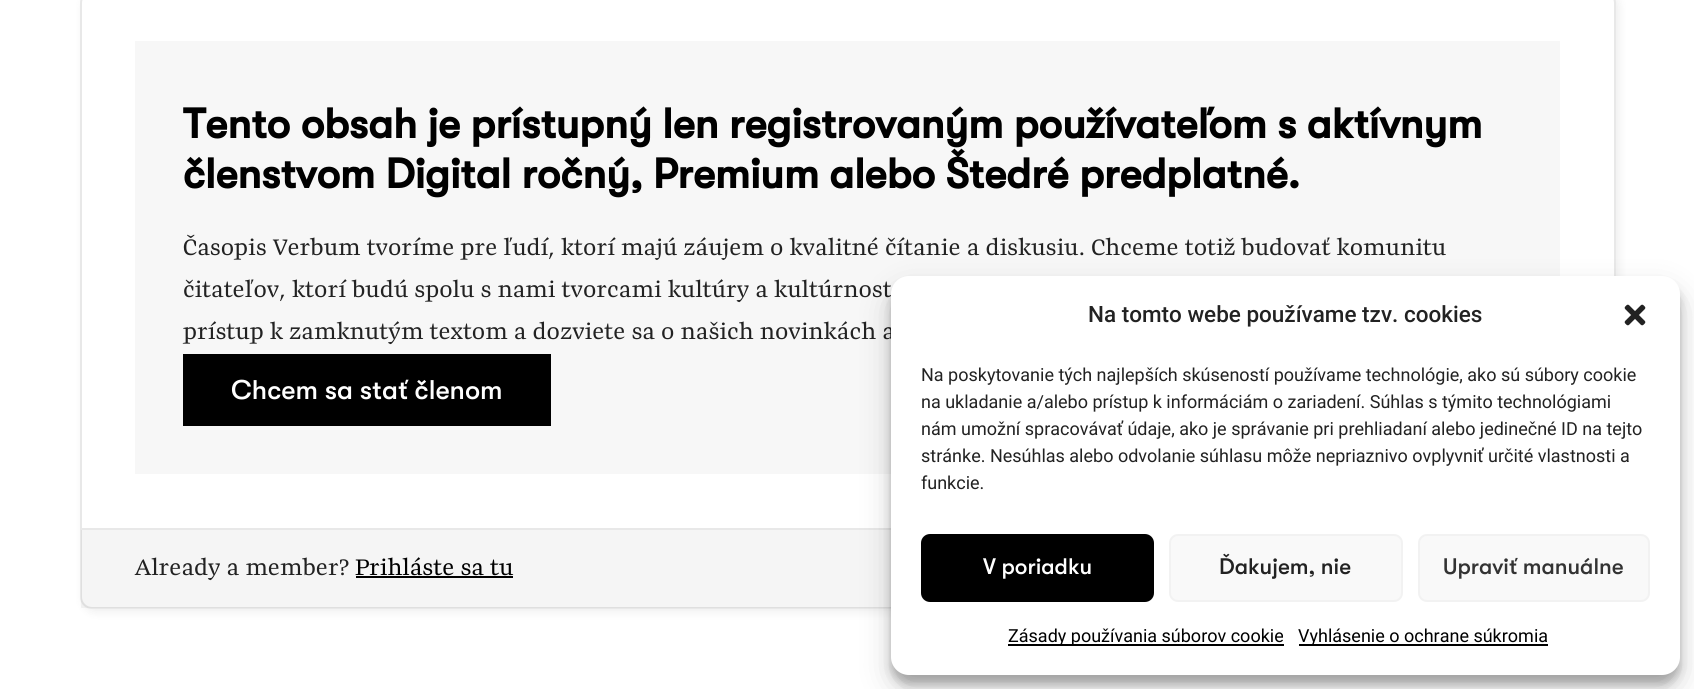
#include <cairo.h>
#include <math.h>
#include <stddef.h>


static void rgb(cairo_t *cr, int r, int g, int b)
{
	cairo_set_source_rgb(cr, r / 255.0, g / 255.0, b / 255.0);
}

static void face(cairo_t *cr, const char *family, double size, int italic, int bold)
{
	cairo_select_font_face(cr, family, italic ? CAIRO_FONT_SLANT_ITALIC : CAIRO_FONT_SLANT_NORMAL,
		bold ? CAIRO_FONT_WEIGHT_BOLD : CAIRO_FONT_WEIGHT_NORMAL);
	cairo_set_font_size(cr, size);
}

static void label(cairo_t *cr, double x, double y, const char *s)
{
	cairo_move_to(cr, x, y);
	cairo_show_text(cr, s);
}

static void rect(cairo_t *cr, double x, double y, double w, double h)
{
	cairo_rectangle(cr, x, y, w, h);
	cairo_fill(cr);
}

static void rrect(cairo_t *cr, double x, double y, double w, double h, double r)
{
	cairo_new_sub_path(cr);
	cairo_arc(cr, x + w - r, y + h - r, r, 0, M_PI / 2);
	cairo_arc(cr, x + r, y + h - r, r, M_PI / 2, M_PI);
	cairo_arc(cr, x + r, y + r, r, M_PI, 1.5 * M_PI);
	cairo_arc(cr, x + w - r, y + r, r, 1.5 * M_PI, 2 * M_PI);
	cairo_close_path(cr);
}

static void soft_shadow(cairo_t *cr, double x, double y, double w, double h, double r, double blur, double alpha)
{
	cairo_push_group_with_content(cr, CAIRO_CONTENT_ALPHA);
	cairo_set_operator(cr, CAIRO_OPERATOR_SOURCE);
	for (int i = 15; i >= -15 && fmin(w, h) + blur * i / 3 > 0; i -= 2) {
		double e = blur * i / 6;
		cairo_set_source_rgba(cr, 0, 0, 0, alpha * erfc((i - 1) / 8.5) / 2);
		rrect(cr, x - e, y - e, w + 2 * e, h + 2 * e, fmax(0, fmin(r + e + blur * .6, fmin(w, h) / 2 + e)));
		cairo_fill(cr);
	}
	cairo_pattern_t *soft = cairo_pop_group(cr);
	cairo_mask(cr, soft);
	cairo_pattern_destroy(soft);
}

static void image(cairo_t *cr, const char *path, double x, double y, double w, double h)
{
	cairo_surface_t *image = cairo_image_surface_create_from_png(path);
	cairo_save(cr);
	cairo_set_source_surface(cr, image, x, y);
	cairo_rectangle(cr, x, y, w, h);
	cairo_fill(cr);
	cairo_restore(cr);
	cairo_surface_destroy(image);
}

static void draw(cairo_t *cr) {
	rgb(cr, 255, 255, 255);
	cairo_paint(cr);
	rgb(cr, 0, 0, 0);
	soft_shadow(cr, 83, -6, 1536, 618, 12, 5, 0.07);
	rgb(cr, 255, 255, 255);
	rrect(cr, 81, -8, 1534, 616, 11);
	cairo_fill_preserve(cr);
	rgb(cr, 232, 232, 232);
	cairo_stroke(cr);
	rgb(cr, 247, 247, 247);
	rect(cr, 135, 41, 1425, 433);
	face(cr, "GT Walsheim", 42, 0, 1);
	rgb(cr, 0, 0, 0);
	label(cr, 183, 138, "Tento obsah je prístupný len registrovaným používateľom s aktívnym");
	label(cr, 183, 188, "členstvom Digital ročný, Premium alebo Štedré predplatné.");
	face(cr, "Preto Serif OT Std", 24, 0, 0);
	rgb(cr, 34, 34, 34);
	label(cr, 183, 255, "Časopis Verbum tvoríme pre ľudí, ktorí majú záujem o kvalitné čítanie a diskusiu. Chceme totiž budovať komunitu");
	label(cr, 183, 297, "čitateľov, ktorí budú spolu s nami tvorcami kultúry a kultúrnost");
	label(cr, 183, 339, "prístup k zamknutým textom a dozviete sa o našich novinkách a");
	rgb(cr, 0, 0, 0);
	rect(cr, 183, 354, 368, 72);
	face(cr, "GT Walsheim Medium", 27, 0, 0);
	rgb(cr, 255, 255, 255);
	label(cr, 231, 399, "Chcem sa stať členom");
	cairo_set_source_rgba(cr, 0, 0, 0, 0.04);
	rect(cr, 81, 530, 810, 78);
	rgb(cr, 232, 232, 232);
	rect(cr, 81, 528, 810, 2);
	face(cr, "Preto Serif OT Std", 24, 0, 0);
	rgb(cr, 34, 34, 34);
	label(cr, 135, 575, "Already a member?");
	rgb(cr, 0, 0, 0);
	label(cr, 355, 575, "Prihláste sa tu");
	rect(cr, 356, 576, 157, 2);
	rgb(cr, 0, 0, 0);
	soft_shadow(cr, 891, 285, 789, 399, 18, 4.5, 0.23);
	soft_shadow(cr, 891, 291, 789, 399, 18, 15, 0.19);
	rgb(cr, 255, 255, 255);
	rrect(cr, 891, 276, 789, 399, 18);
	cairo_fill(cr);
	face(cr, "Roboto Medium", 22.5, 0, 0);
	rgb(cr, 34, 34, 34);
	label(cr, 1088, 322, "Na tomto webe používame tzv. cookies");
	image(cr, "image0.png", 1624, 304, 22, 22);
	face(cr, "Roboto", 18, 0, 0);
	label(cr, 921, 381, "Na poskytovanie tých najlepších skúseností používame technológie, ako sú súbory cookie");
	label(cr, 921, 408, "na ukladanie a/alebo prístup k informáciám o zariadení. Súhlas s týmito technológiami");
	label(cr, 921, 435, "nám umožní spracovávať údaje, ako je správanie pri prehliadaní alebo jedinečné ID na tejto");
	label(cr, 921, 462, "stránke. Nesúhlas alebo odvolanie súhlasu môže nepriaznivo ovplyvniť určité vlastnosti a");
	label(cr, 921, 489, "funkcie.");
	rgb(cr, 0, 0, 0);
	rrect(cr, 922, 535, 231, 66, 8);
	cairo_fill_preserve(cr);
	cairo_stroke(cr);
	face(cr, "GT Walsheim Medium", 22.5, 0, 0);
	rgb(cr, 255, 255, 255);
	label(cr, 983, 574, "V poriadku");
	rgb(cr, 249, 249, 249);
	rrect(cr, 1170, 535, 232, 66, 8);
	cairo_fill_preserve(cr);
	rgb(cr, 242, 242, 242);
	cairo_stroke(cr);
	rgb(cr, 34, 34, 34);
	label(cr, 1219, 574, "Ďakujem, nie");
	rgb(cr, 249, 249, 249);
	rrect(cr, 1419, 535, 230, 66, 8);
	cairo_fill_preserve(cr);
	rgb(cr, 242, 242, 242);
	cairo_stroke(cr);
	rgb(cr, 51, 51, 51);
	label(cr, 1443, 574, "Upraviť manuálne");
	rgb(cr, 0, 0, 0);
	rect(cr, 1008, 644, 276, 2);
	face(cr, "Roboto", 18, 0, 0);
	label(cr, 1008, 642, "Zásady používania súborov cookie");
	rect(cr, 1299, 644, 249, 2);
	label(cr, 1298, 642, "Vyhlásenie o ochrane súkromia");
}

int main(void) {
	cairo_surface_t *surface = cairo_image_surface_create(CAIRO_FORMAT_RGB24, 1694, 689);
	cairo_t *cr = cairo_create(surface);
	cairo_font_options_t *options = cairo_font_options_create();
	cairo_font_options_set_hint_metrics(options, CAIRO_HINT_METRICS_OFF);
	cairo_font_options_set_hint_style(options, CAIRO_HINT_STYLE_NONE);
	cairo_set_font_options(cr, options);
	cairo_set_miter_limit(cr, 4);
	draw(cr);
	cairo_surface_write_to_png(surface, "render.png");
	cairo_font_options_destroy(options);
	cairo_destroy(cr);
	cairo_surface_destroy(surface);
	return 0;
}
